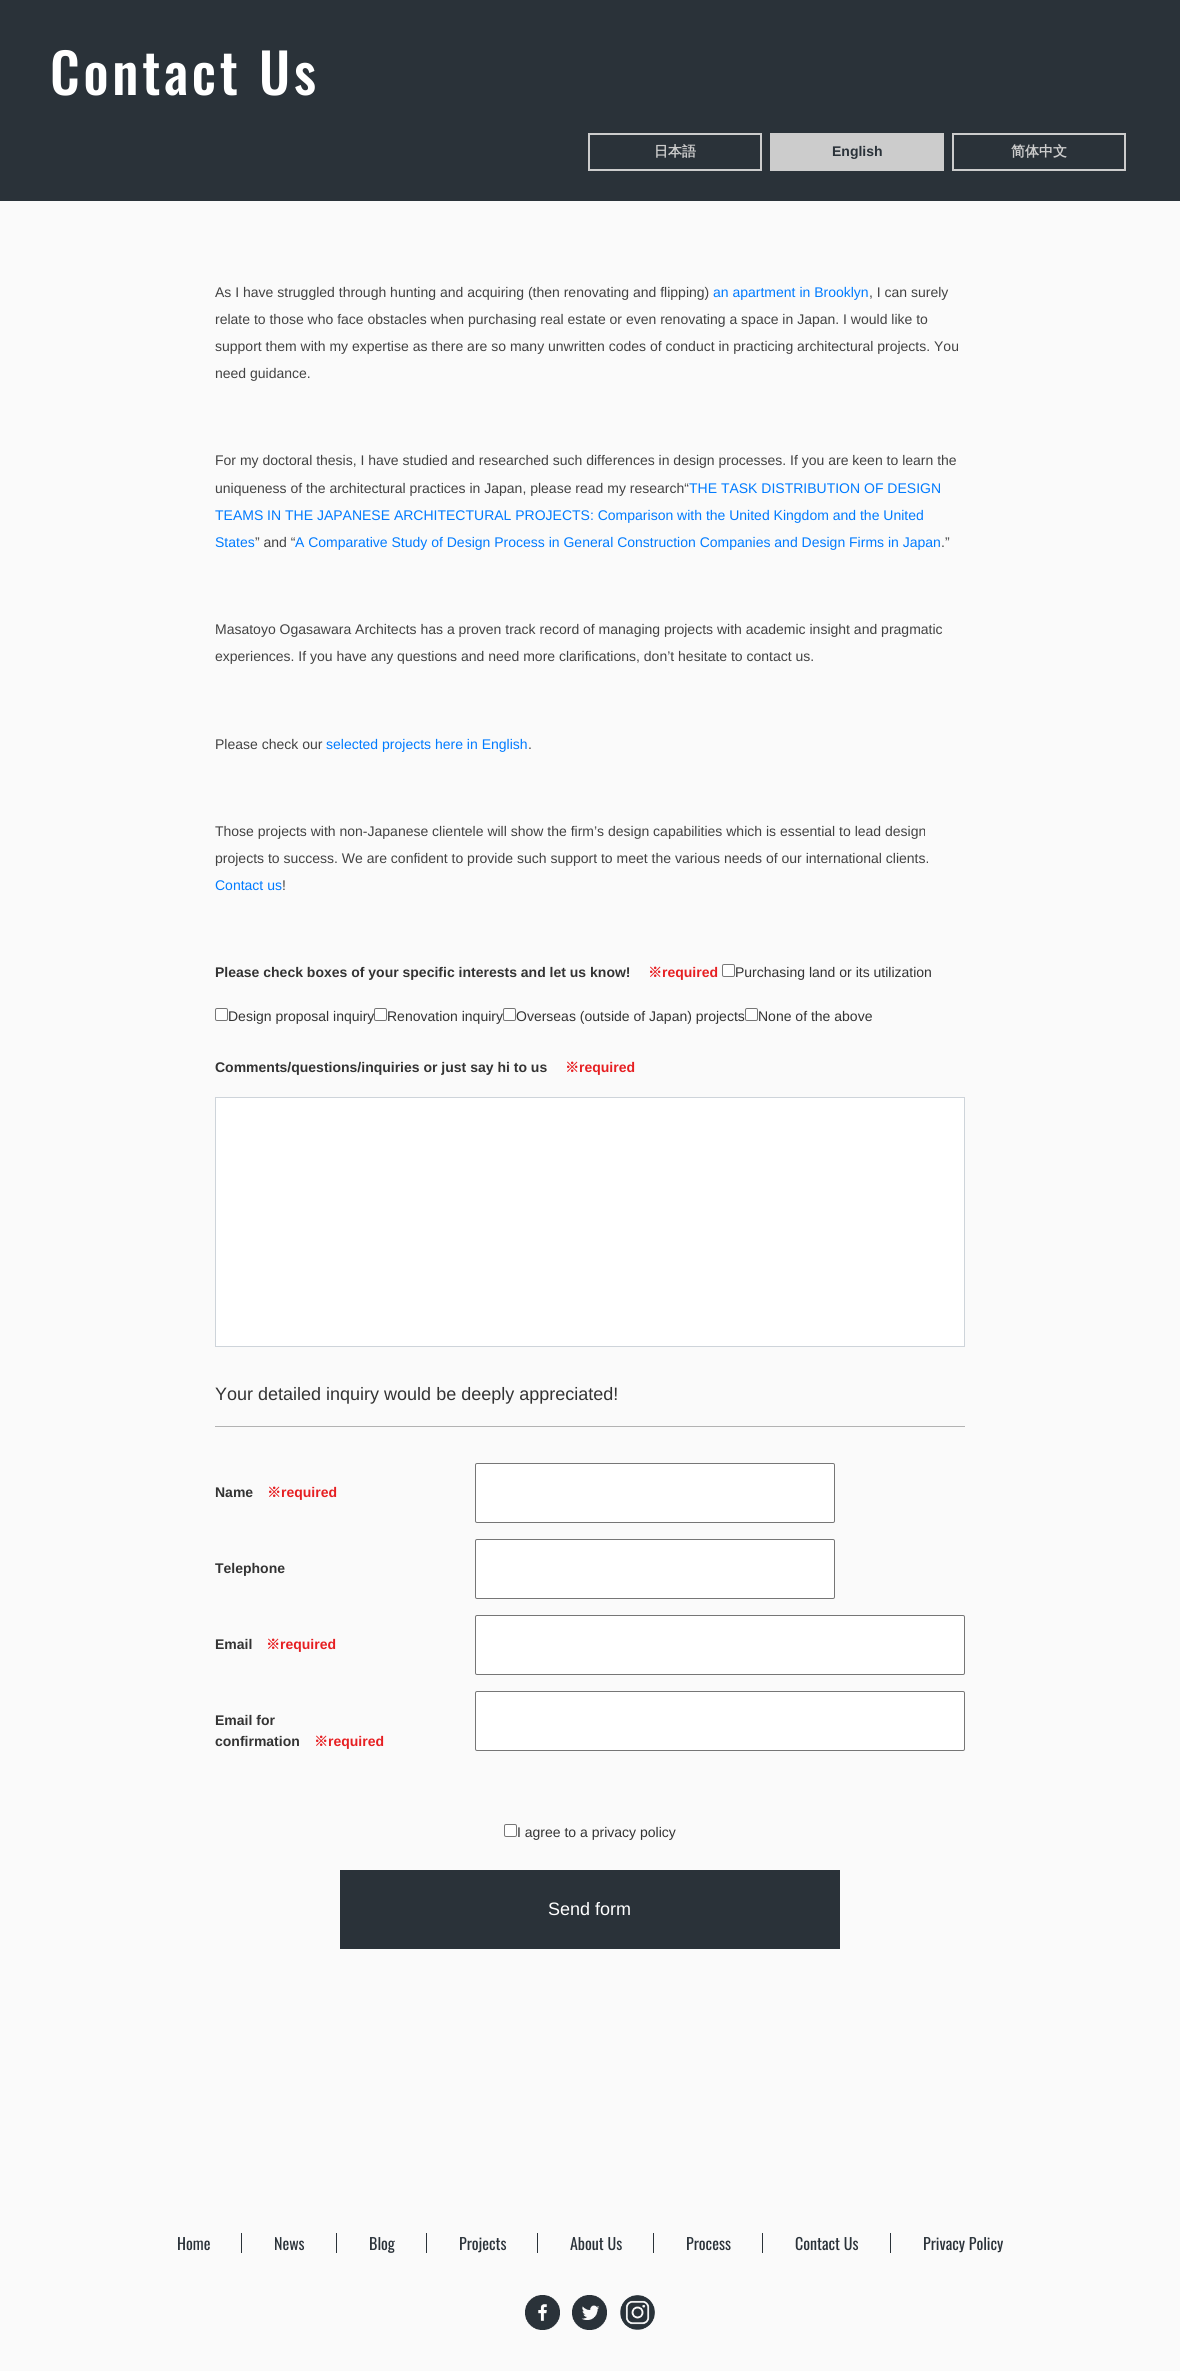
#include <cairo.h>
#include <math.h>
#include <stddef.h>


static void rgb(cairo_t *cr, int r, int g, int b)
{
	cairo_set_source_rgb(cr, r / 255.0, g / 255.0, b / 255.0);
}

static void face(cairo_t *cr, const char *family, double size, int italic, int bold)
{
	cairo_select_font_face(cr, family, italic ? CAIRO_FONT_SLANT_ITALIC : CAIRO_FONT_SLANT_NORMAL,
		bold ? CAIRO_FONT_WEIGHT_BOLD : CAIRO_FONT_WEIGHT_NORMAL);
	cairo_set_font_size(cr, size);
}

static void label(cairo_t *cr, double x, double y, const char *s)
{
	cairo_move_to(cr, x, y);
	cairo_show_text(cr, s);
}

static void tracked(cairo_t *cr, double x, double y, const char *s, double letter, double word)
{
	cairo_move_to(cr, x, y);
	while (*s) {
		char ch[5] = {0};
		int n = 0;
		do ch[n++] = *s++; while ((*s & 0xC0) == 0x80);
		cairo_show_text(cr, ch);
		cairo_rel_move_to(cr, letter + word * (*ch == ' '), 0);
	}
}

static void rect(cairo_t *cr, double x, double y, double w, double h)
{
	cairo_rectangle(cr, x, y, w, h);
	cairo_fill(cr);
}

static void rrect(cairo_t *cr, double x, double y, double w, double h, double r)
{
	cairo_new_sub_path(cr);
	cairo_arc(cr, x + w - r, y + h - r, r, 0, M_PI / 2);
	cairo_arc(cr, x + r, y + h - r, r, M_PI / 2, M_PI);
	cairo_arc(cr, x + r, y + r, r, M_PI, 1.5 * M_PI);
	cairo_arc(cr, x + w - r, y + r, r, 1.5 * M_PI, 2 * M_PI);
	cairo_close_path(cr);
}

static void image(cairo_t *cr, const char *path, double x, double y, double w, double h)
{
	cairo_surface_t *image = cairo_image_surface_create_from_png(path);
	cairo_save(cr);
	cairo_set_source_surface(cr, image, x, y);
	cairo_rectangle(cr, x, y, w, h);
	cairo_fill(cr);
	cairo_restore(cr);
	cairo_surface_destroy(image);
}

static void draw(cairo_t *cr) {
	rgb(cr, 250, 250, 250);
	cairo_paint(cr);
	rgb(cr, 42, 50, 57);
	rect(cr, 0, 0, 1180, 201);
	face(cr, "Oswald Medium", 55, 0, 0);
	rgb(cr, 255, 255, 255);
	tracked(cr, 50, 95, "Contact Us", 3.8, 0);
	cairo_rectangle(cr, 589, 134, 172, 36);
	rgb(cr, 204, 204, 204);
	cairo_stroke(cr);
	face(cr, "WenQuanYi Zen Hei", 14, 0, 1);
	label(cr, 654, 156, "日本語");
	rect(cr, 770, 133, 174, 38);
	face(cr, "Liberation Sans", 14, 0, 1);
	rgb(cr, 42, 50, 57);
	label(cr, 832, 156, "English");
	cairo_rectangle(cr, 953, 134, 172, 36);
	rgb(cr, 204, 204, 204);
	cairo_stroke(cr);
	face(cr, "WenQuanYi Zen Hei", 14, 0, 1);
	label(cr, 1011, 156, "简体中文");
	face(cr, "Liberation Sans", 14, 0, 0);
	rgb(cr, 66, 66, 66);
	label(cr, 215, 297, "As I have struggled through hunting and acquiring (then renovating and flipping)");
	rgb(cr, 0, 123, 255);
	label(cr, 713, 297, "an apartment in Brooklyn");
	rgb(cr, 66, 66, 66);
	label(cr, 869, 297, ", I can surely");
	label(cr, 215, 324, "relate to those who face obstacles when purchasing real estate or even renovating a space in Japan. I would like to");
	label(cr, 215, 351, "support them with my expertise as there are so many unwritten codes of conduct in practicing architectural projects. You");
	label(cr, 215, 378, "need guidance.");
	label(cr, 215, 465, "For my doctoral thesis, I have studied and researched such differences in design processes. If you are keen to learn the");
	label(cr, 215, 493, "uniqueness of the architectural practices in Japan, please read my research“");
	rgb(cr, 0, 123, 255);
	label(cr, 689, 493, "THE TASK DISTRIBUTION OF DESIGN");
	label(cr, 215, 520, "TEAMS IN THE JAPANESE ARCHITECTURAL PROJECTS: Comparison with the United Kingdom and the United");
	label(cr, 215, 547, "States");
	rgb(cr, 66, 66, 66);
	label(cr, 255, 547, "” and “");
	rgb(cr, 0, 123, 255);
	label(cr, 295, 547, "A Comparative Study of Design Process in General Construction Companies and Design Firms in Japan");
	rgb(cr, 66, 66, 66);
	label(cr, 941, 547, ".”");
	label(cr, 215, 634, "Masatoyo Ogasawara Architects has a proven track record of managing projects with academic insight and pragmatic");
	label(cr, 215, 661, "experiences. If you have any questions and need more clarifications, don’t hesitate to contact us.");
	label(cr, 215, 749, "Please check our");
	rgb(cr, 0, 123, 255);
	label(cr, 326, 749, "selected projects here in English");
	rgb(cr, 66, 66, 66);
	label(cr, 528, 749, ".");
	label(cr, 215, 836, "Those projects with non-Japanese clientele will show the firm’s design capabilities which is essential to lead design");
	label(cr, 215, 863, "projects to success. We are confident to provide such support to meet the various needs of our international clients.");
	rgb(cr, 0, 123, 255);
	label(cr, 215, 890, "Contact us");
	rgb(cr, 66, 66, 66);
	label(cr, 282, 890, "!");
	face(cr, "Liberation Sans", 14, 0, 1);
	rgb(cr, 51, 51, 51);
	label(cr, 215, 977, "Please check boxes of your specific interests and let us know!");
	face(cr, "WenQuanYi Zen Hei", 14, 0, 1);
	rgb(cr, 230, 31, 34);
	label(cr, 648, 977, "※");
	face(cr, "Liberation Sans", 14, 0, 1);
	label(cr, 662, 977, "required");
	rgb(cr, 255, 255, 255);
	rrect(cr, 722.5, 964.5, 12, 12, 1.5);
	cairo_fill_preserve(cr);
	rgb(cr, 118, 118, 118);
	cairo_set_line_width(cr, 1);
	cairo_stroke(cr);
	face(cr, "Liberation Sans", 14, 0, 0);
	rgb(cr, 51, 51, 51);
	label(cr, 735, 977, "Purchasing land or its utilization");
	rgb(cr, 255, 255, 255);
	rrect(cr, 215.5, 1008.5, 12, 12, 1.5);
	cairo_fill_preserve(cr);
	rgb(cr, 118, 118, 118);
	cairo_stroke(cr);
	rgb(cr, 51, 51, 51);
	label(cr, 228, 1021, "Design proposal inquiry");
	rgb(cr, 255, 255, 255);
	rrect(cr, 374.5, 1008.5, 12, 12, 1.5);
	cairo_fill_preserve(cr);
	rgb(cr, 118, 118, 118);
	cairo_stroke(cr);
	rgb(cr, 51, 51, 51);
	label(cr, 387, 1021, "Renovation inquiry");
	rgb(cr, 255, 255, 255);
	rrect(cr, 503.5, 1008.5, 12, 12, 1.5);
	cairo_fill_preserve(cr);
	rgb(cr, 118, 118, 118);
	cairo_stroke(cr);
	rgb(cr, 51, 51, 51);
	label(cr, 516, 1021, "Overseas (outside of Japan) projects");
	rgb(cr, 255, 255, 255);
	rrect(cr, 745.5, 1008.5, 12, 12, 1.5);
	cairo_fill_preserve(cr);
	rgb(cr, 118, 118, 118);
	cairo_stroke(cr);
	rgb(cr, 51, 51, 51);
	label(cr, 758, 1021, "None of the above");
	face(cr, "Liberation Sans", 14, 0, 1);
	label(cr, 215, 1072, "Comments/questions/inquiries or just say hi to us");
	face(cr, "WenQuanYi Zen Hei", 14, 0, 1);
	rgb(cr, 230, 31, 34);
	label(cr, 565, 1072, "※");
	face(cr, "Liberation Sans", 14, 0, 1);
	label(cr, 579, 1072, "required");
	rgb(cr, 255, 255, 255);
	cairo_rectangle(cr, 215.5, 1097.5, 749, 249);
	cairo_fill_preserve(cr);
	rgb(cr, 206, 212, 218);
	cairo_stroke(cr);
	rgb(cr, 179, 179, 179);
	rect(cr, 215, 1426, 750, 1);
	face(cr, "Liberation Sans", 18, 0, 0);
	rgb(cr, 51, 51, 51);
	label(cr, 215, 1400, "Your detailed inquiry would be deeply appreciated!");
	face(cr, "Liberation Sans", 14, 0, 1);
	label(cr, 215, 1497, "Name");
	face(cr, "WenQuanYi Zen Hei", 14, 0, 1);
	rgb(cr, 230, 31, 34);
	label(cr, 267, 1497, "※");
	face(cr, "Liberation Sans", 14, 0, 1);
	label(cr, 281, 1497, "required");
	rgb(cr, 255, 255, 255);
	rrect(cr, 475.5, 1463.5, 359, 59, 1.5);
	cairo_fill_preserve(cr);
	rgb(cr, 118, 118, 118);
	cairo_stroke(cr);
	rgb(cr, 51, 51, 51);
	label(cr, 215, 1573, "Telephone");
	rgb(cr, 255, 255, 255);
	rrect(cr, 475.5, 1539.5, 359, 59, 1.5);
	cairo_fill_preserve(cr);
	rgb(cr, 118, 118, 118);
	cairo_stroke(cr);
	rgb(cr, 51, 51, 51);
	label(cr, 215, 1649, "Email");
	face(cr, "WenQuanYi Zen Hei", 14, 0, 1);
	rgb(cr, 230, 31, 34);
	label(cr, 266, 1649, "※");
	face(cr, "Liberation Sans", 14, 0, 1);
	label(cr, 280, 1649, "required");
	rgb(cr, 255, 255, 255);
	rrect(cr, 475.5, 1615.5, 489, 59, 1.5);
	cairo_fill_preserve(cr);
	rgb(cr, 118, 118, 118);
	cairo_stroke(cr);
	rgb(cr, 51, 51, 51);
	label(cr, 215, 1725, "Email for");
	label(cr, 215, 1746, "confirmation");
	face(cr, "WenQuanYi Zen Hei", 14, 0, 1);
	rgb(cr, 230, 31, 34);
	label(cr, 314, 1746, "※");
	face(cr, "Liberation Sans", 14, 0, 1);
	label(cr, 328, 1746, "required");
	rgb(cr, 255, 255, 255);
	rrect(cr, 475.5, 1691.5, 489, 59, 1.5);
	cairo_fill_preserve(cr);
	rgb(cr, 118, 118, 118);
	cairo_stroke(cr);
	rgb(cr, 255, 255, 255);
	rrect(cr, 504.5, 1824.5, 12, 12, 1.5);
	cairo_fill_preserve(cr);
	rgb(cr, 118, 118, 118);
	cairo_stroke(cr);
	face(cr, "Liberation Sans", 14, 0, 0);
	rgb(cr, 51, 51, 51);
	label(cr, 517, 1837, "I agree to a privacy policy");
	rgb(cr, 42, 50, 57);
	rect(cr, 340, 1870, 500, 79);
	face(cr, "Liberation Sans", 18, 0, 0);
	rgb(cr, 255, 255, 255);
	label(cr, 548, 1915, "Send form");
	face(cr, "Oswald", 16, 0, 0);
	rgb(cr, 42, 50, 57);
	label(cr, 177, 2250, "Home");
	rect(cr, 241, 2233, 1, 20);
	label(cr, 274, 2250, "News");
	rect(cr, 336, 2233, 1, 20);
	label(cr, 369, 2250, "Blog");
	rect(cr, 426, 2233, 1, 20);
	label(cr, 459, 2250, "Projects");
	rect(cr, 537, 2233, 1, 20);
	label(cr, 570, 2250, "About Us");
	rect(cr, 653, 2233, 1, 20);
	label(cr, 686, 2250, "Process");
	rect(cr, 762, 2233, 1, 20);
	label(cr, 795, 2250, "Contact Us");
	rect(cr, 890, 2233, 1, 20);
	label(cr, 923, 2250, "Privacy Policy");
	image(cr, "image0.png", 525, 2295, 35, 35);
	image(cr, "image1.png", 572, 2295, 35, 35);
	image(cr, "image2.png", 620, 2295, 35, 35);
}

int main(void) {
	cairo_surface_t *surface = cairo_image_surface_create(CAIRO_FORMAT_RGB24, 1180, 2371);
	cairo_t *cr = cairo_create(surface);
	cairo_font_options_t *options = cairo_font_options_create();
	cairo_font_options_set_hint_metrics(options, CAIRO_HINT_METRICS_OFF);
	cairo_font_options_set_hint_style(options, CAIRO_HINT_STYLE_NONE);
	cairo_set_font_options(cr, options);
	cairo_set_miter_limit(cr, 4);
	draw(cr);
	cairo_surface_write_to_png(surface, "render.png");
	cairo_font_options_destroy(options);
	cairo_destroy(cr);
	cairo_surface_destroy(surface);
	return 0;
}
